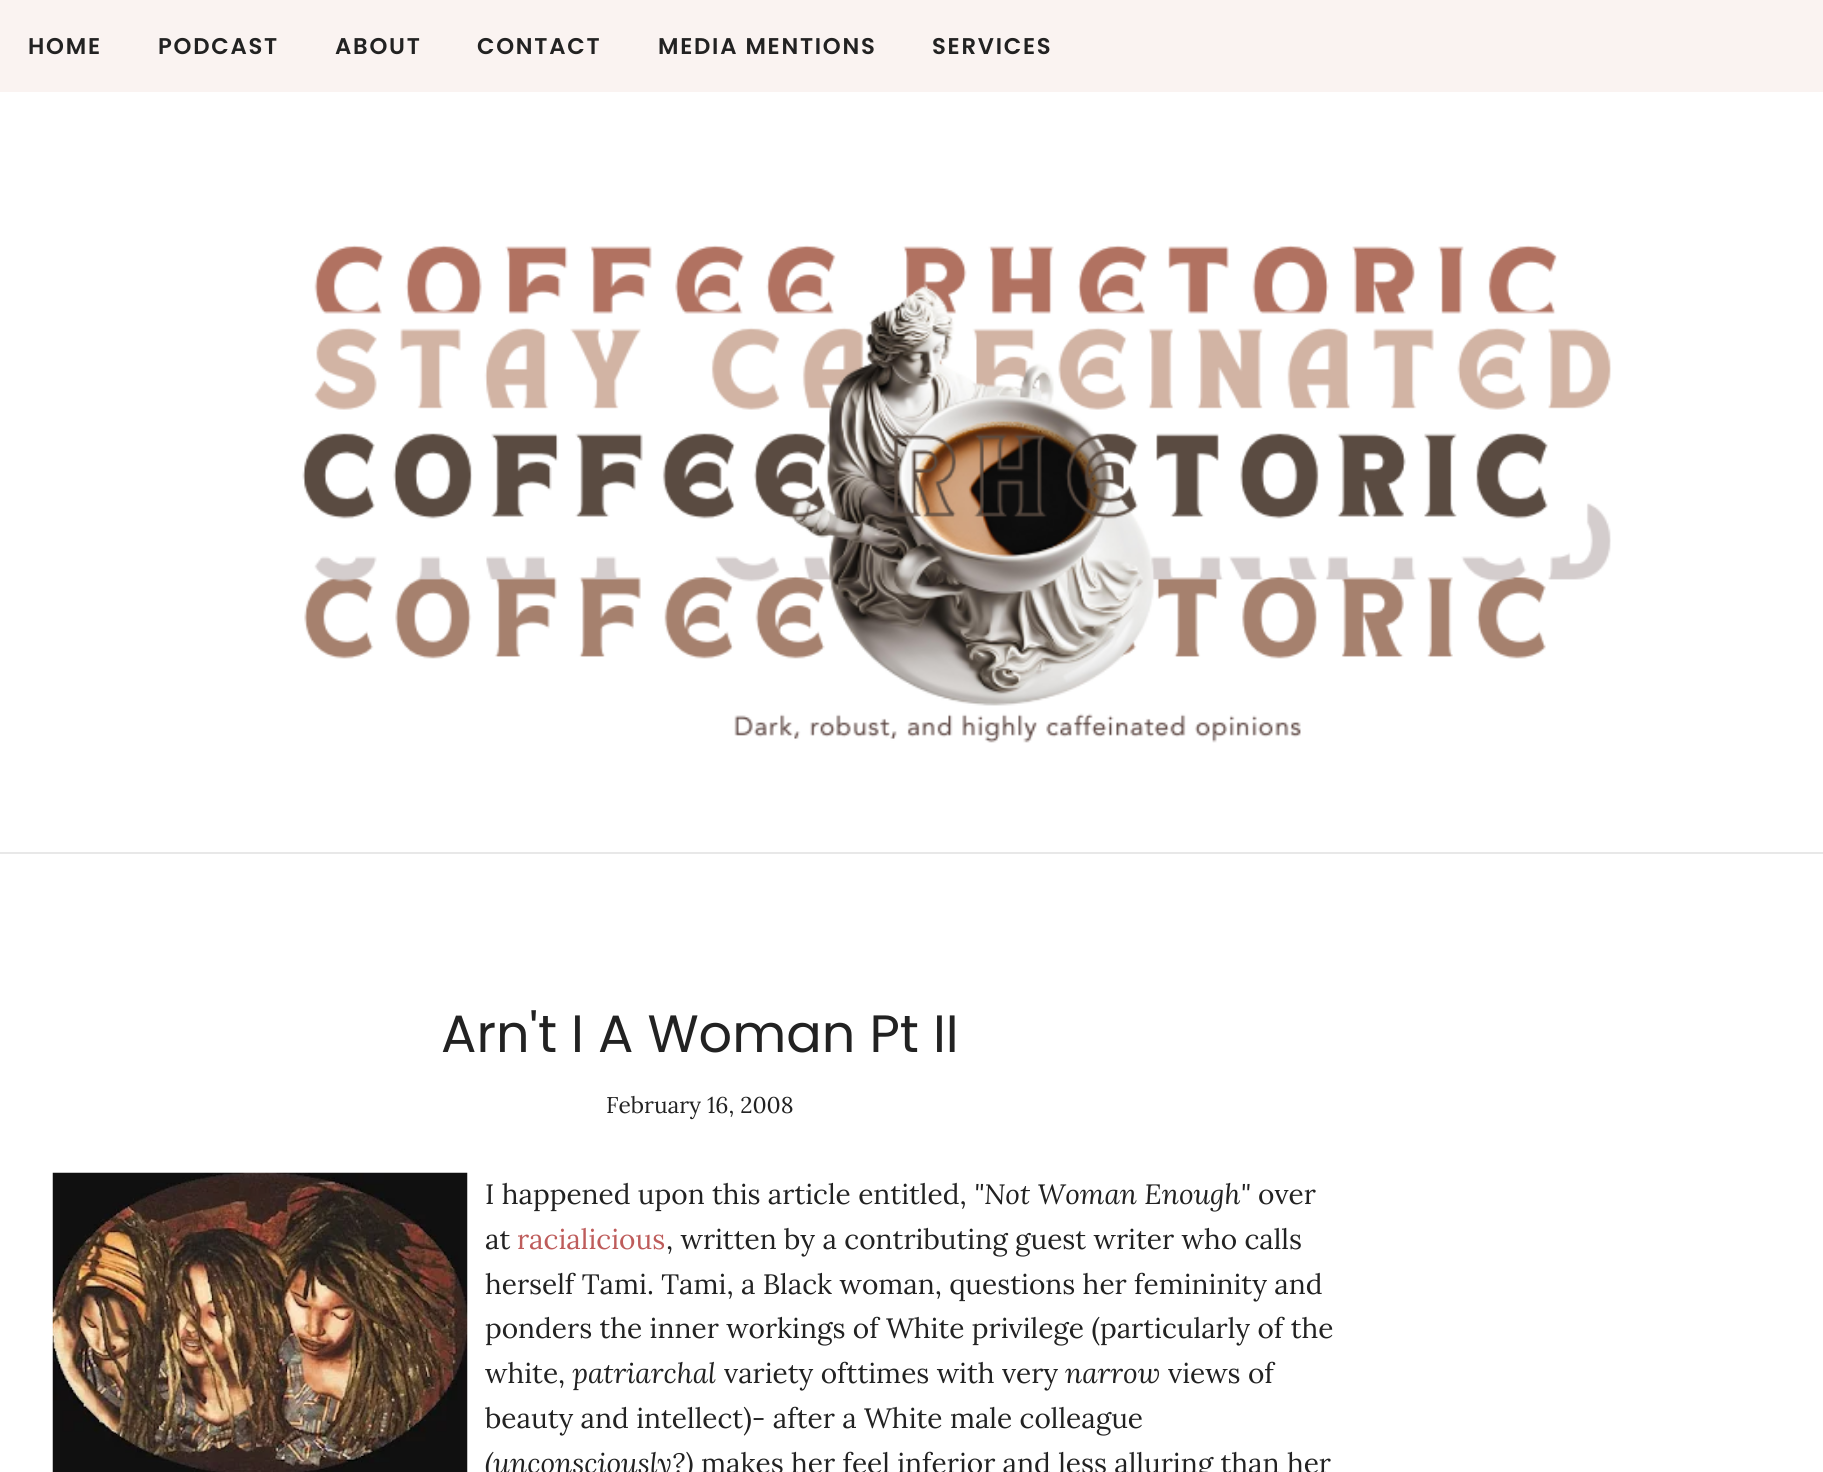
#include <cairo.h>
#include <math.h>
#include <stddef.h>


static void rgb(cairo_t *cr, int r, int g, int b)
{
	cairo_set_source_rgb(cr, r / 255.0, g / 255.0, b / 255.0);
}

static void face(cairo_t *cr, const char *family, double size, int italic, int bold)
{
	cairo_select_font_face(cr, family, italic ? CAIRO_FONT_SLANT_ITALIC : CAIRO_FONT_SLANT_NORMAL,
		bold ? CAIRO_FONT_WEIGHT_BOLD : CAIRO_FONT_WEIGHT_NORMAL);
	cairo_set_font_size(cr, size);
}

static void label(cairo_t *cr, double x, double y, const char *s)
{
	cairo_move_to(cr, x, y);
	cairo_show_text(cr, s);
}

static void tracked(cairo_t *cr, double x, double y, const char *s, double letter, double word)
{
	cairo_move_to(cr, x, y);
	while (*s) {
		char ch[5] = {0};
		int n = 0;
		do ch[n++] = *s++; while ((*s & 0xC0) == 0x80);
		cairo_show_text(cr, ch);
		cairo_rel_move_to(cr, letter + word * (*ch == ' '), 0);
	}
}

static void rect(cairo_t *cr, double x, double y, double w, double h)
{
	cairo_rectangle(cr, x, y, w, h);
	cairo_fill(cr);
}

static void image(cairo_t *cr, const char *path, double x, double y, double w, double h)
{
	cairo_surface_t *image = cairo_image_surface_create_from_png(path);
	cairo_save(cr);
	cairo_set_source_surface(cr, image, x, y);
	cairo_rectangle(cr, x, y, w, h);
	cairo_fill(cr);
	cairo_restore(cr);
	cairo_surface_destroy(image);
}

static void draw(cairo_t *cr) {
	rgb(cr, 255, 255, 255);
	cairo_paint(cr);
	rgb(cr, 250, 243, 241);
	rect(cr, 0, 0, 1823, 92);
	face(cr, "Poppins SemiBold", 22.75, 0, 0);
	rgb(cr, 34, 34, 34);
	tracked(cr, 28, 54, "HOME", 1.75, 0);
	tracked(cr, 158, 54, "PODCAST", 1.75, 0);
	tracked(cr, 335, 54, "ABOUT", 1.75, 0);
	tracked(cr, 477, 54, "CONTACT", 1.75, 0);
	tracked(cr, 658, 54, "MEDIA MENTIONS", 1.75, 0);
	tracked(cr, 932, 54, "SERVICES", 1.75, 0);
	rgb(cr, 232, 232, 232);
	rect(cr, 0, 852, 1823, 2);
	image(cr, "image0.png", 302, 245, 1309, 498);
	face(cr, "Poppins", 52.5, 0, 0);
	rgb(cr, 34, 34, 34);
	label(cr, 441, 1052, "Arn't I A Woman Pt II");
	face(cr, "Lora", 22.75, 0, 0);
	label(cr, 606, 1113, "February 16, 2008");
	image(cr, "image1.png", 52, 1172, 416, 300);
	face(cr, "Lora", 28, 0, 0);
	label(cr, 485, 1204, "I happened upon this article entitled,");
	face(cr, "Lora", 28, 1, 0);
	label(cr, 974, 1204, "\"Not Woman Enough\"");
	face(cr, "Lora", 28, 0, 0);
	label(cr, 1258, 1204, "over");
	label(cr, 485, 1249, "at");
	rgb(cr, 190, 92, 91);
	label(cr, 517, 1249, "racialicious");
	rgb(cr, 34, 34, 34);
	label(cr, 666, 1249, ", written by a contributing guest writer who calls");
	label(cr, 485, 1294, "herself Tami. Tami, a Black woman, questions her femininity and");
	label(cr, 485, 1338, "ponders the inner workings of White privilege (particularly of the");
	label(cr, 485, 1383, "white,");
	face(cr, "Lora", 28, 1, 0);
	label(cr, 572, 1383, "patriarchal");
	face(cr, "Lora", 28, 0, 0);
	label(cr, 724, 1383, "variety ofttimes with very");
	face(cr, "Lora", 28, 1, 0);
	label(cr, 1065, 1383, "narrow");
	face(cr, "Lora", 28, 0, 0);
	label(cr, 1168, 1383, "views of");
	label(cr, 485, 1428, "beauty and intellect)- after a White male colleague");
	face(cr, "Lora", 28, 1, 0);
	label(cr, 485, 1473, "(unconsciously?)");
	face(cr, "Lora", 28, 0, 0);
	label(cr, 701, 1473, "makes her feel inferior and less alluring than her");
}

int main(void) {
	cairo_surface_t *surface = cairo_image_surface_create(CAIRO_FORMAT_RGB24, 1823, 1472);
	cairo_t *cr = cairo_create(surface);
	cairo_font_options_t *options = cairo_font_options_create();
	cairo_font_options_set_hint_metrics(options, CAIRO_HINT_METRICS_OFF);
	cairo_font_options_set_hint_style(options, CAIRO_HINT_STYLE_NONE);
	cairo_set_font_options(cr, options);
	cairo_set_miter_limit(cr, 4);
	draw(cr);
	cairo_surface_write_to_png(surface, "render.png");
	cairo_font_options_destroy(options);
	cairo_destroy(cr);
	cairo_surface_destroy(surface);
	return 0;
}
